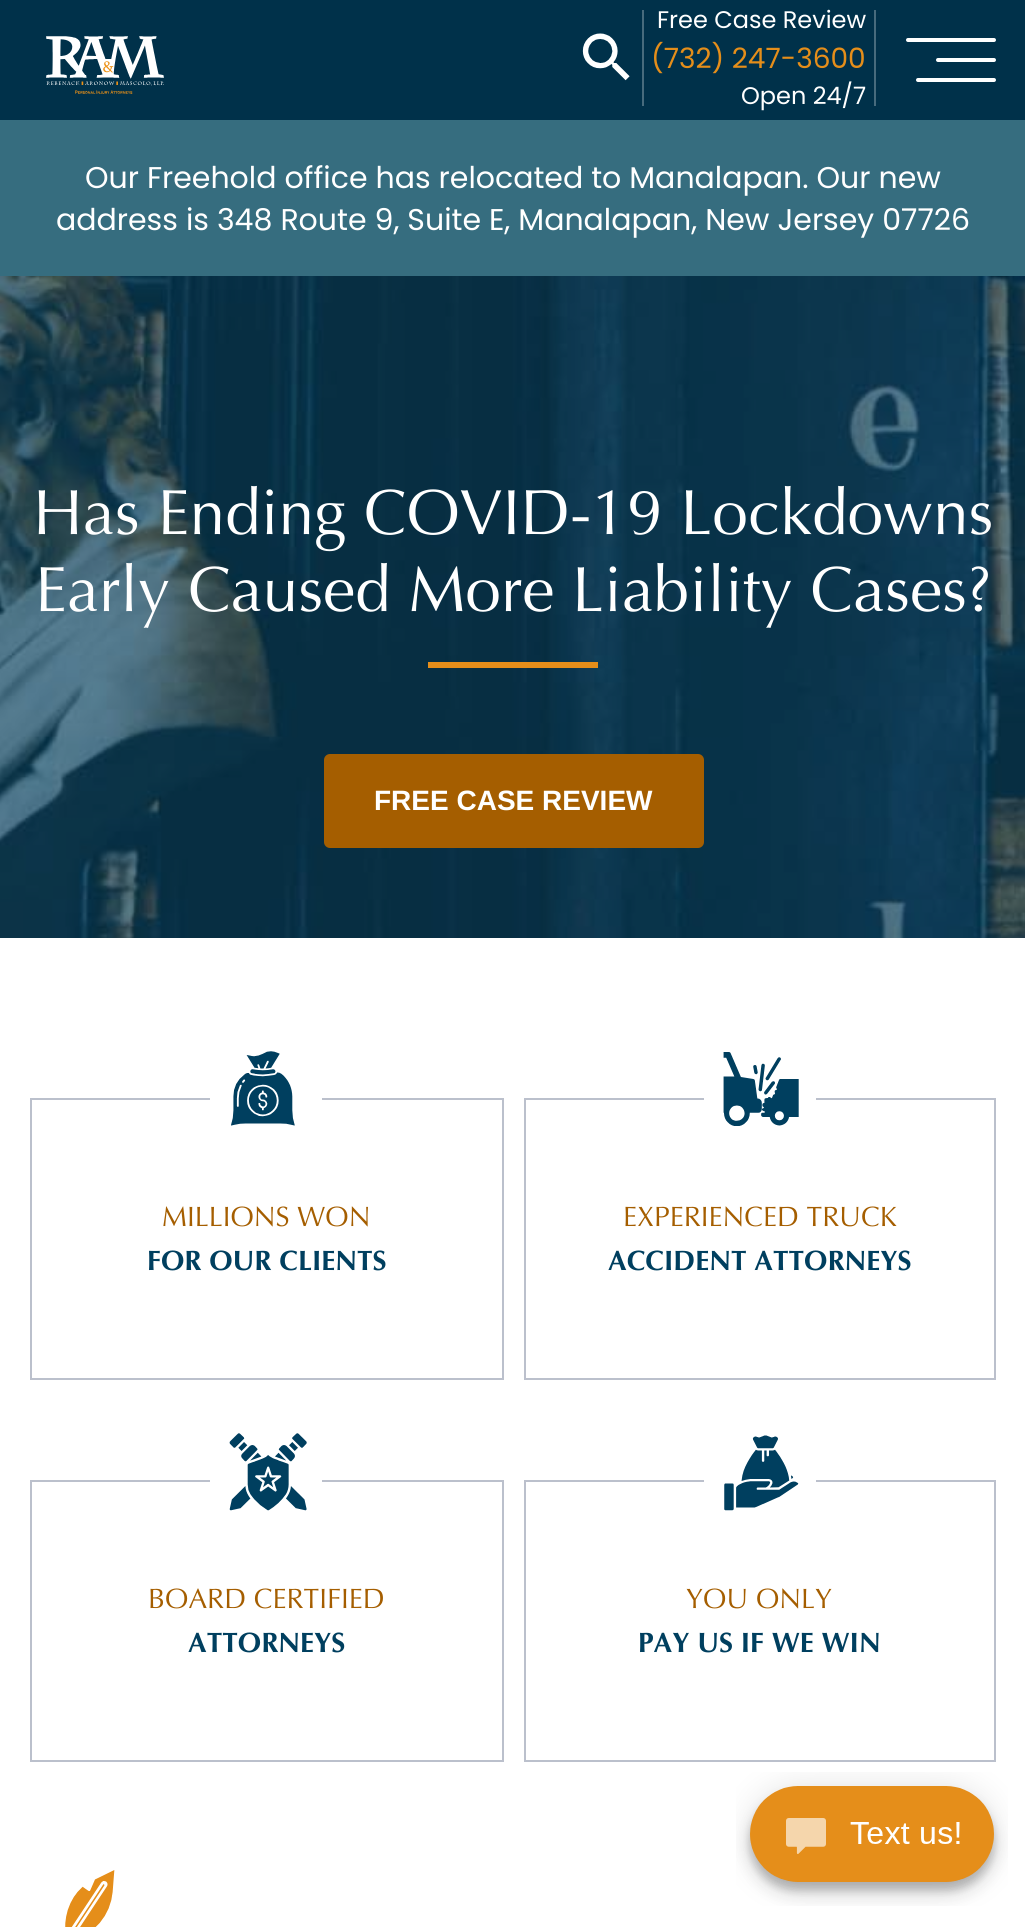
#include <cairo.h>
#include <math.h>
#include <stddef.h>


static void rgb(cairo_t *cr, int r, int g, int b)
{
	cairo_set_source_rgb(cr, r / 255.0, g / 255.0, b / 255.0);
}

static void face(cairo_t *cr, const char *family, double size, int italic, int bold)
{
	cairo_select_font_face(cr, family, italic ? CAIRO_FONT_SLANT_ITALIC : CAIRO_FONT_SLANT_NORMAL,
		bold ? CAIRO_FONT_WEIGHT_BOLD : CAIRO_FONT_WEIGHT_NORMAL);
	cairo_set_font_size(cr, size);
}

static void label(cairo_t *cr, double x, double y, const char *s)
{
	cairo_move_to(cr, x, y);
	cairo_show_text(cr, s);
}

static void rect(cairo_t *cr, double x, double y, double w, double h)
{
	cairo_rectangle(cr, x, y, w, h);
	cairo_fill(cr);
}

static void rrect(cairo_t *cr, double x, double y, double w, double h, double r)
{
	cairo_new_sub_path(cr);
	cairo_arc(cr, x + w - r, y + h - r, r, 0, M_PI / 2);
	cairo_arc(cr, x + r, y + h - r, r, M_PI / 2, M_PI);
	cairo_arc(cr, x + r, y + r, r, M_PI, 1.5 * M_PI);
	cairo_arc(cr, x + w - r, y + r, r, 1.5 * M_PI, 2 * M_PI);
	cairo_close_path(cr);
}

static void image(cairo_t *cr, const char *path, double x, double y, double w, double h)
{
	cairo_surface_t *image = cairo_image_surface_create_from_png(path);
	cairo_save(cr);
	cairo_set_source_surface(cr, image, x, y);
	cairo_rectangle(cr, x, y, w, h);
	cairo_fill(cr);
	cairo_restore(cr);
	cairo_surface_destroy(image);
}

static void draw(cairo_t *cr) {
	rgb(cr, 255, 255, 255);
	cairo_paint(cr);
	rgb(cr, 0, 49, 74);
	rect(cr, 0, 0, 1025, 120);
	image(cr, "image0.png", 46, 36, 118, 58);
	image(cr, "image1.png", 582, 33, 48, 48);
	rgb(cr, 71, 107, 125);
	rect(cr, 642, 10, 2, 96);
	face(cr, "Poppins", 24, 0, 0);
	rgb(cr, 255, 255, 255);
	label(cr, 657, 28, "Free Case Review");
	rgb(cr, 71, 107, 125);
	rect(cr, 874, 10, 2, 96);
	face(cr, "Poppins", 28, 0, 0);
	rgb(cr, 229, 142, 26);
	label(cr, 651, 68, "(732) 247-3600");
	face(cr, "Poppins", 24, 0, 0);
	rgb(cr, 255, 255, 255);
	label(cr, 741, 104, "Open 24/7");
	rrect(cr, 906, 38, 90, 4, 2);
	cairo_fill(cr);
	rrect(cr, 936, 58, 60, 4, 2);
	cairo_fill(cr);
	rrect(cr, 916, 78, 80, 4, 2);
	cairo_fill(cr);
	rgb(cr, 54, 109, 127);
	rect(cr, 0, 120, 1025, 156);
	face(cr, "Poppins", 30, 0, 0);
	rgb(cr, 255, 255, 255);
	label(cr, 85, 188, "Our Freehold office has relocated to Manalapan. Our new");
	label(cr, 56, 230, "address is 348 Route 9, Suite E, Manalapan, New Jersey 07726");
	image(cr, "image2.png", 0, 276, 1025, 662);
	face(cr, "Optima", 64, 0, 0);
	label(cr, 33, 534, "Has Ending COVID-19 Lockdowns");
	label(cr, 35, 611, "Early Caused More Liability Cases?");
	rgb(cr, 229, 142, 26);
	rect(cr, 428, 662, 170, 6);
	rgb(cr, 165, 94, 0);
	rrect(cr, 324, 754, 380, 94, 6);
	cairo_fill(cr);
	face(cr, "Liberation Sans", 28, 0, 1);
	rgb(cr, 255, 255, 255);
	label(cr, 374, 810, "FREE CASE REVIEW");
	cairo_rectangle(cr, 31, 1099, 472, 280);
	rgb(cr, 187, 192, 204);
	cairo_stroke(cr);
	rgb(cr, 255, 255, 255);
	rect(cr, 210, 1098, 112, 2);
	image(cr, "image3.png", 231, 1051, 64, 75);
	face(cr, "Optima", 28, 0, 0);
	rgb(cr, 165, 94, 0);
	label(cr, 162, 1226, "MILLIONS WON");
	face(cr, "Optima", 28, 0, 1);
	rgb(cr, 0, 63, 95);
	label(cr, 147, 1270, "FOR OUR CLIENTS");
	cairo_rectangle(cr, 525, 1099, 470, 280);
	rgb(cr, 187, 192, 204);
	cairo_stroke(cr);
	rgb(cr, 255, 255, 255);
	rect(cr, 704, 1098, 112, 2);
	image(cr, "image4.png", 723, 1052, 76, 74);
	face(cr, "Optima", 28, 0, 0);
	rgb(cr, 165, 94, 0);
	label(cr, 623, 1226, "EXPERIENCED TRUCK");
	face(cr, "Optima", 28, 0, 1);
	rgb(cr, 0, 63, 95);
	label(cr, 608, 1270, "ACCIDENT ATTORNEYS");
	cairo_rectangle(cr, 31, 1481, 472, 280);
	rgb(cr, 187, 192, 204);
	cairo_stroke(cr);
	rgb(cr, 255, 255, 255);
	rect(cr, 210, 1480, 112, 2);
	image(cr, "image5.png", 229, 1433, 78, 78);
	face(cr, "Optima", 28, 0, 0);
	rgb(cr, 165, 94, 0);
	label(cr, 148, 1608, "BOARD CERTIFIED");
	face(cr, "Optima", 28, 0, 1);
	rgb(cr, 0, 63, 95);
	label(cr, 188, 1652, "ATTORNEYS");
	cairo_rectangle(cr, 525, 1481, 470, 280);
	rgb(cr, 187, 192, 204);
	cairo_stroke(cr);
	rgb(cr, 255, 255, 255);
	rect(cr, 704, 1480, 112, 2);
	image(cr, "image6.png", 724, 1435, 75, 76);
	face(cr, "Optima", 28, 0, 0);
	rgb(cr, 165, 94, 0);
	label(cr, 686, 1608, "YOU ONLY");
	face(cr, "Optima", 28, 0, 1);
	rgb(cr, 0, 63, 95);
	label(cr, 638, 1652, "PAY US IF WE WIN");
	image(cr, "image7.png", 65, 1870, 50, 57);
	image(cr, "image8.png", 736, 1772, 272, 134);
}

int main(void) {
	cairo_surface_t *surface = cairo_image_surface_create(CAIRO_FORMAT_RGB24, 1025, 1927);
	cairo_t *cr = cairo_create(surface);
	cairo_font_options_t *options = cairo_font_options_create();
	cairo_font_options_set_hint_metrics(options, CAIRO_HINT_METRICS_OFF);
	cairo_font_options_set_hint_style(options, CAIRO_HINT_STYLE_NONE);
	cairo_set_font_options(cr, options);
	cairo_set_miter_limit(cr, 4);
	draw(cr);
	cairo_surface_write_to_png(surface, "render.png");
	cairo_font_options_destroy(options);
	cairo_destroy(cr);
	cairo_surface_destroy(surface);
	return 0;
}
